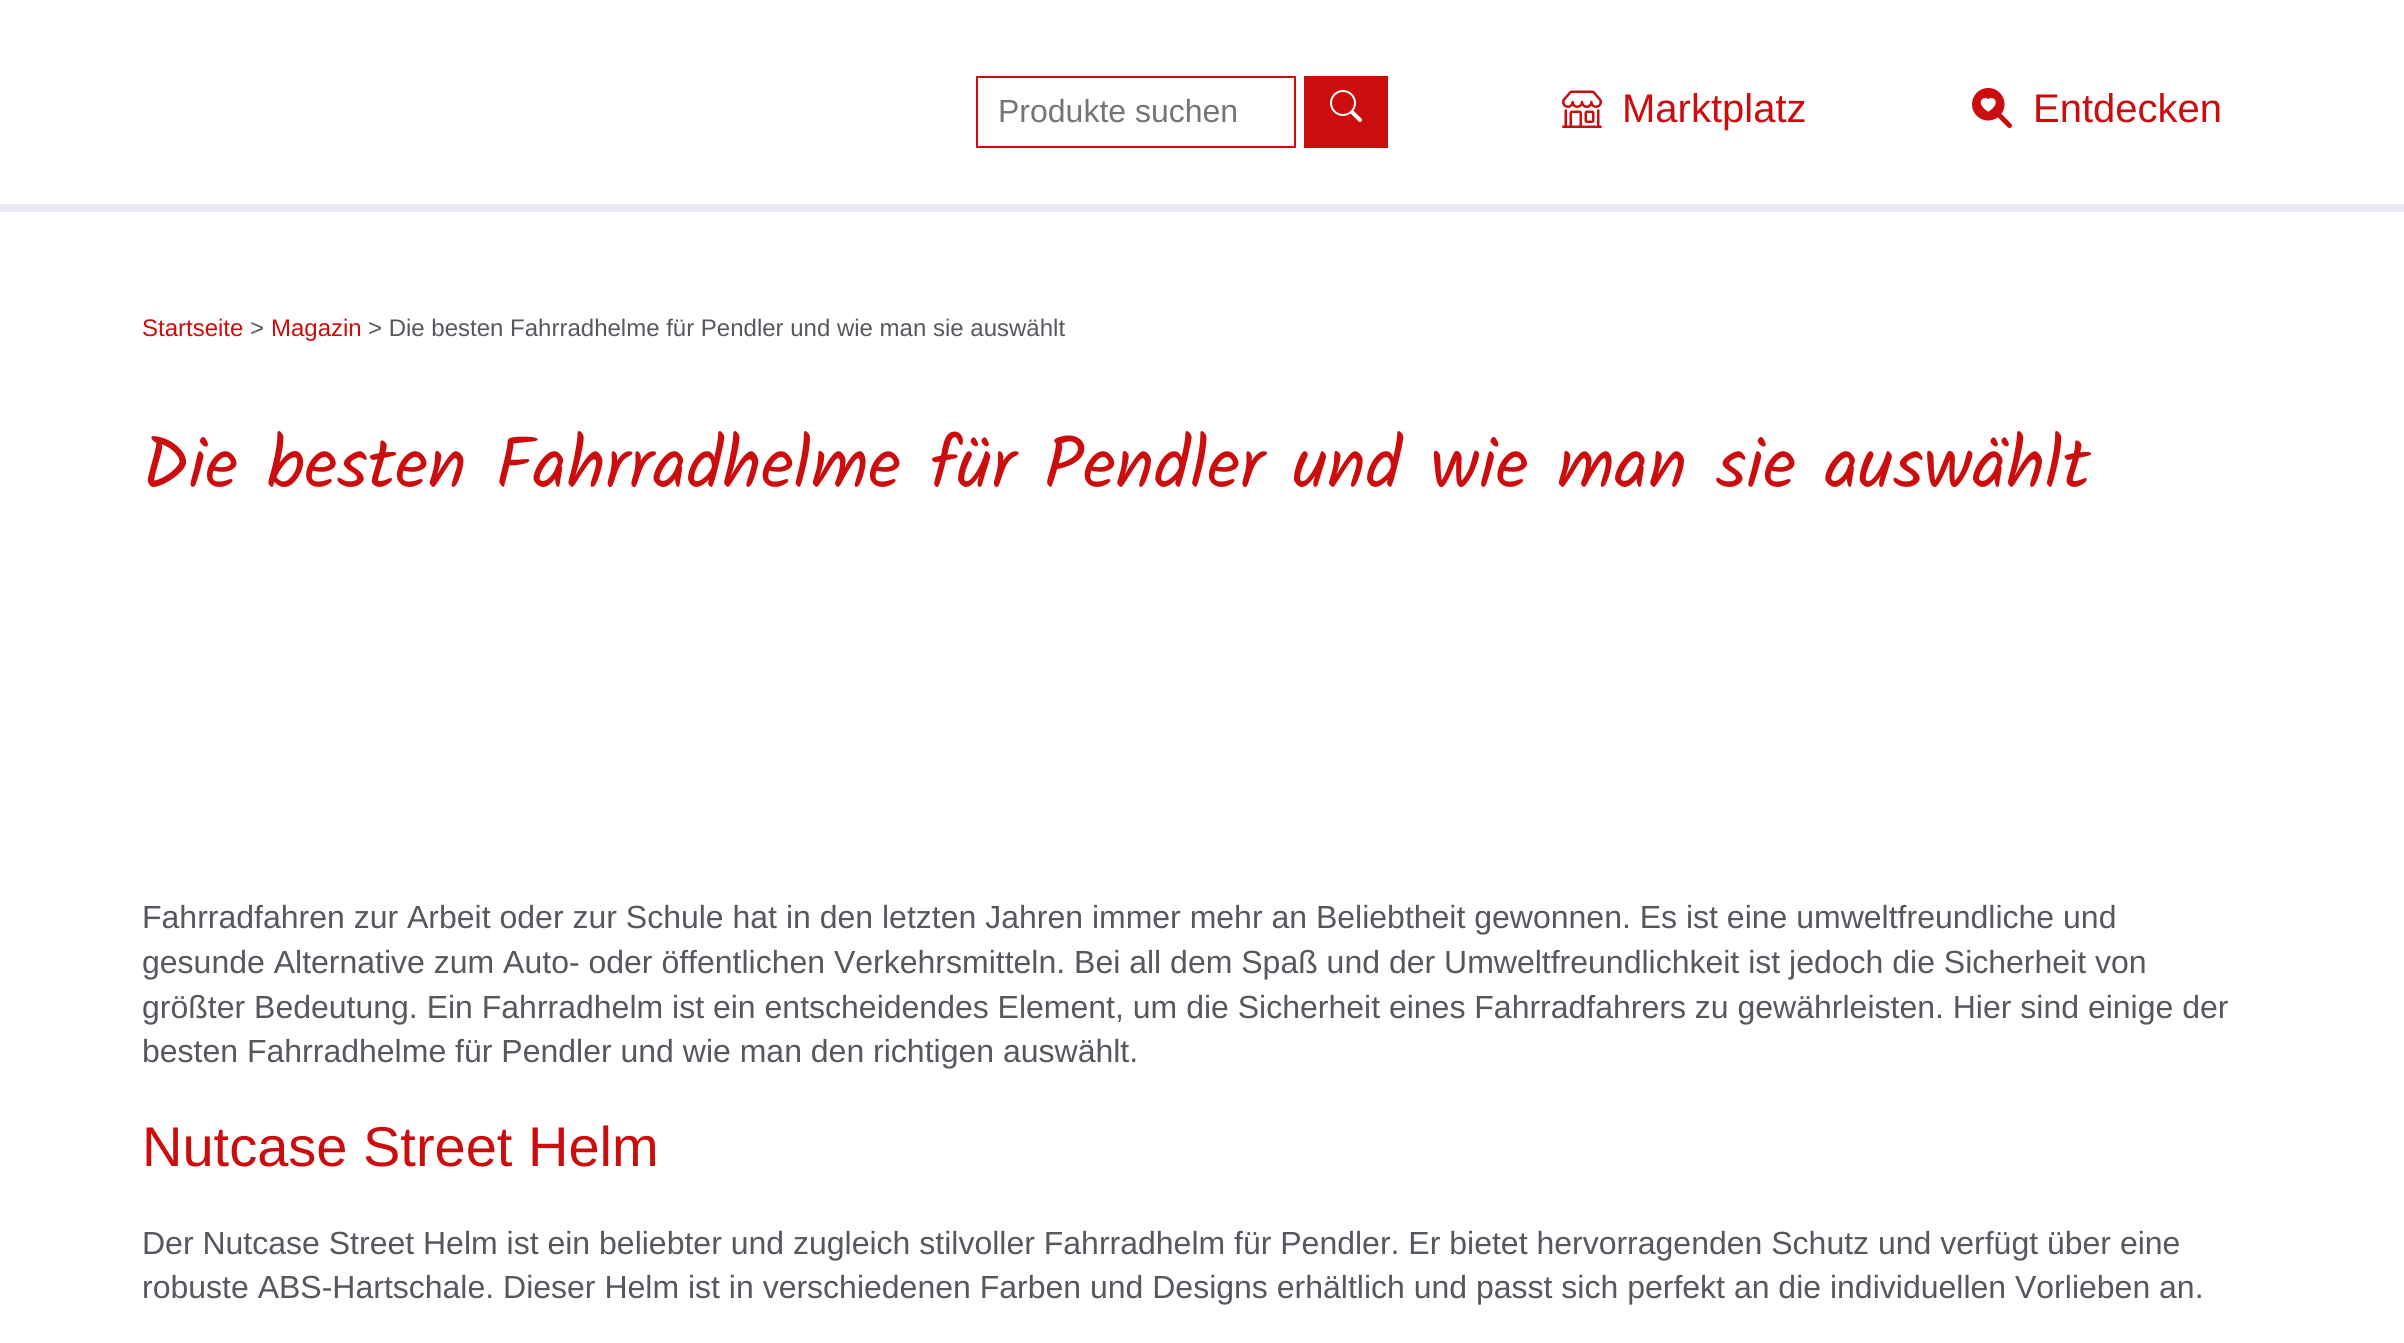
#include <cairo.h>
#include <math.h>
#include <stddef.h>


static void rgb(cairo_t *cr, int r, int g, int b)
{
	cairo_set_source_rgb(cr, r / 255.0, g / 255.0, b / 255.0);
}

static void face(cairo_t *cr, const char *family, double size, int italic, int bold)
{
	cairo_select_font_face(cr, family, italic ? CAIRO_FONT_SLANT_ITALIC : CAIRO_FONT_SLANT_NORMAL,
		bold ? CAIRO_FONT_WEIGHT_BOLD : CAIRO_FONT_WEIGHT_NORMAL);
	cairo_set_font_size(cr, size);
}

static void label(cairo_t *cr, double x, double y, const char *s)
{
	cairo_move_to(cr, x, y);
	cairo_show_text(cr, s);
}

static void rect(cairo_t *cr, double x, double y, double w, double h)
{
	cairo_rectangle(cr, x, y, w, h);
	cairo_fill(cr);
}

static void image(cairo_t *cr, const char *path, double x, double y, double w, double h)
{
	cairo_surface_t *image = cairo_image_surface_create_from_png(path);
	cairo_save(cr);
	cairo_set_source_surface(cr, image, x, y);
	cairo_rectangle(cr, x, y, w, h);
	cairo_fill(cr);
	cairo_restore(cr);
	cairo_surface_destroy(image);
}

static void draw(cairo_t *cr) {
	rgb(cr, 255, 255, 255);
	cairo_paint(cr);
	cairo_rectangle(cr, 977, 77, 318, 70);
	rgb(cr, 204, 13, 13);
	cairo_stroke(cr);
	face(cr, "Liberation Sans", 32, 0, 0);
	rgb(cr, 117, 117, 117);
	label(cr, 998, 122, "Produkte suchen");
	rgb(cr, 204, 13, 13);
	rect(cr, 1304, 76, 84, 72);
	image(cr, "image0.png", 1330, 90, 32, 32);
	image(cr, "image1.png", 1562, 90, 40, 38);
	face(cr, "Liberation Sans", 40, 0, 0);
	label(cr, 1622, 122, "Marktplatz");
	image(cr, "image2.png", 1972, 88, 40, 40);
	label(cr, 2033, 122, "Entdecken");
	rgb(cr, 234, 234, 243);
	rect(cr, 0, 204, 2404, 8);
	face(cr, "Liberation Sans", 24, 0, 0);
	rgb(cr, 204, 13, 13);
	label(cr, 142, 336, "Startseite");
	rgb(cr, 87, 87, 96);
	label(cr, 250, 336, ">");
	rgb(cr, 204, 13, 13);
	label(cr, 271, 336, "Magazin");
	rgb(cr, 87, 87, 96);
	label(cr, 368, 336, "> Die besten Fahrradhelme für Pendler und wie man sie auswählt");
	face(cr, "Kalam", 72, 0, 0);
	rgb(cr, 204, 13, 13);
	label(cr, 142, 488, "Die besten Fahrradhelme für Pendler und wie man sie auswählt");
	face(cr, "Liberation Sans", 32, 0, 0);
	rgb(cr, 87, 87, 96);
	label(cr, 142, 928, "Fahrradfahren zur Arbeit oder zur Schule hat in den letzten Jahren immer mehr an Beliebtheit gewonnen. Es ist eine umweltfreundliche und");
	label(cr, 142, 973, "gesunde Alternative zum Auto- oder öffentlichen Verkehrsmitteln. Bei all dem Spaß und der Umweltfreundlichkeit ist jedoch die Sicherheit von");
	label(cr, 142, 1018, "größter Bedeutung. Ein Fahrradhelm ist ein entscheidendes Element, um die Sicherheit eines Fahrradfahrers zu gewährleisten. Hier sind einige der");
	label(cr, 142, 1062, "besten Fahrradhelme für Pendler und wie man den richtigen auswählt.");
	face(cr, "Liberation Sans", 56, 0, 0);
	rgb(cr, 204, 13, 13);
	label(cr, 142, 1166, "Nutcase Street Helm");
	face(cr, "Liberation Sans", 32, 0, 0);
	rgb(cr, 87, 87, 96);
	label(cr, 142, 1254, "Der Nutcase Street Helm ist ein beliebter und zugleich stilvoller Fahrradhelm für Pendler. Er bietet hervorragenden Schutz und verfügt über eine");
	label(cr, 142, 1298, "robuste ABS-Hartschale. Dieser Helm ist in verschiedenen Farben und Designs erhältlich und passt sich perfekt an die individuellen Vorlieben an.");
}

int main(void) {
	cairo_surface_t *surface = cairo_image_surface_create(CAIRO_FORMAT_RGB24, 2404, 1343);
	cairo_t *cr = cairo_create(surface);
	cairo_font_options_t *options = cairo_font_options_create();
	cairo_font_options_set_hint_metrics(options, CAIRO_HINT_METRICS_OFF);
	cairo_font_options_set_hint_style(options, CAIRO_HINT_STYLE_NONE);
	cairo_set_font_options(cr, options);
	cairo_set_miter_limit(cr, 4);
	draw(cr);
	cairo_surface_write_to_png(surface, "render.png");
	cairo_font_options_destroy(options);
	cairo_destroy(cr);
	cairo_surface_destroy(surface);
	return 0;
}
